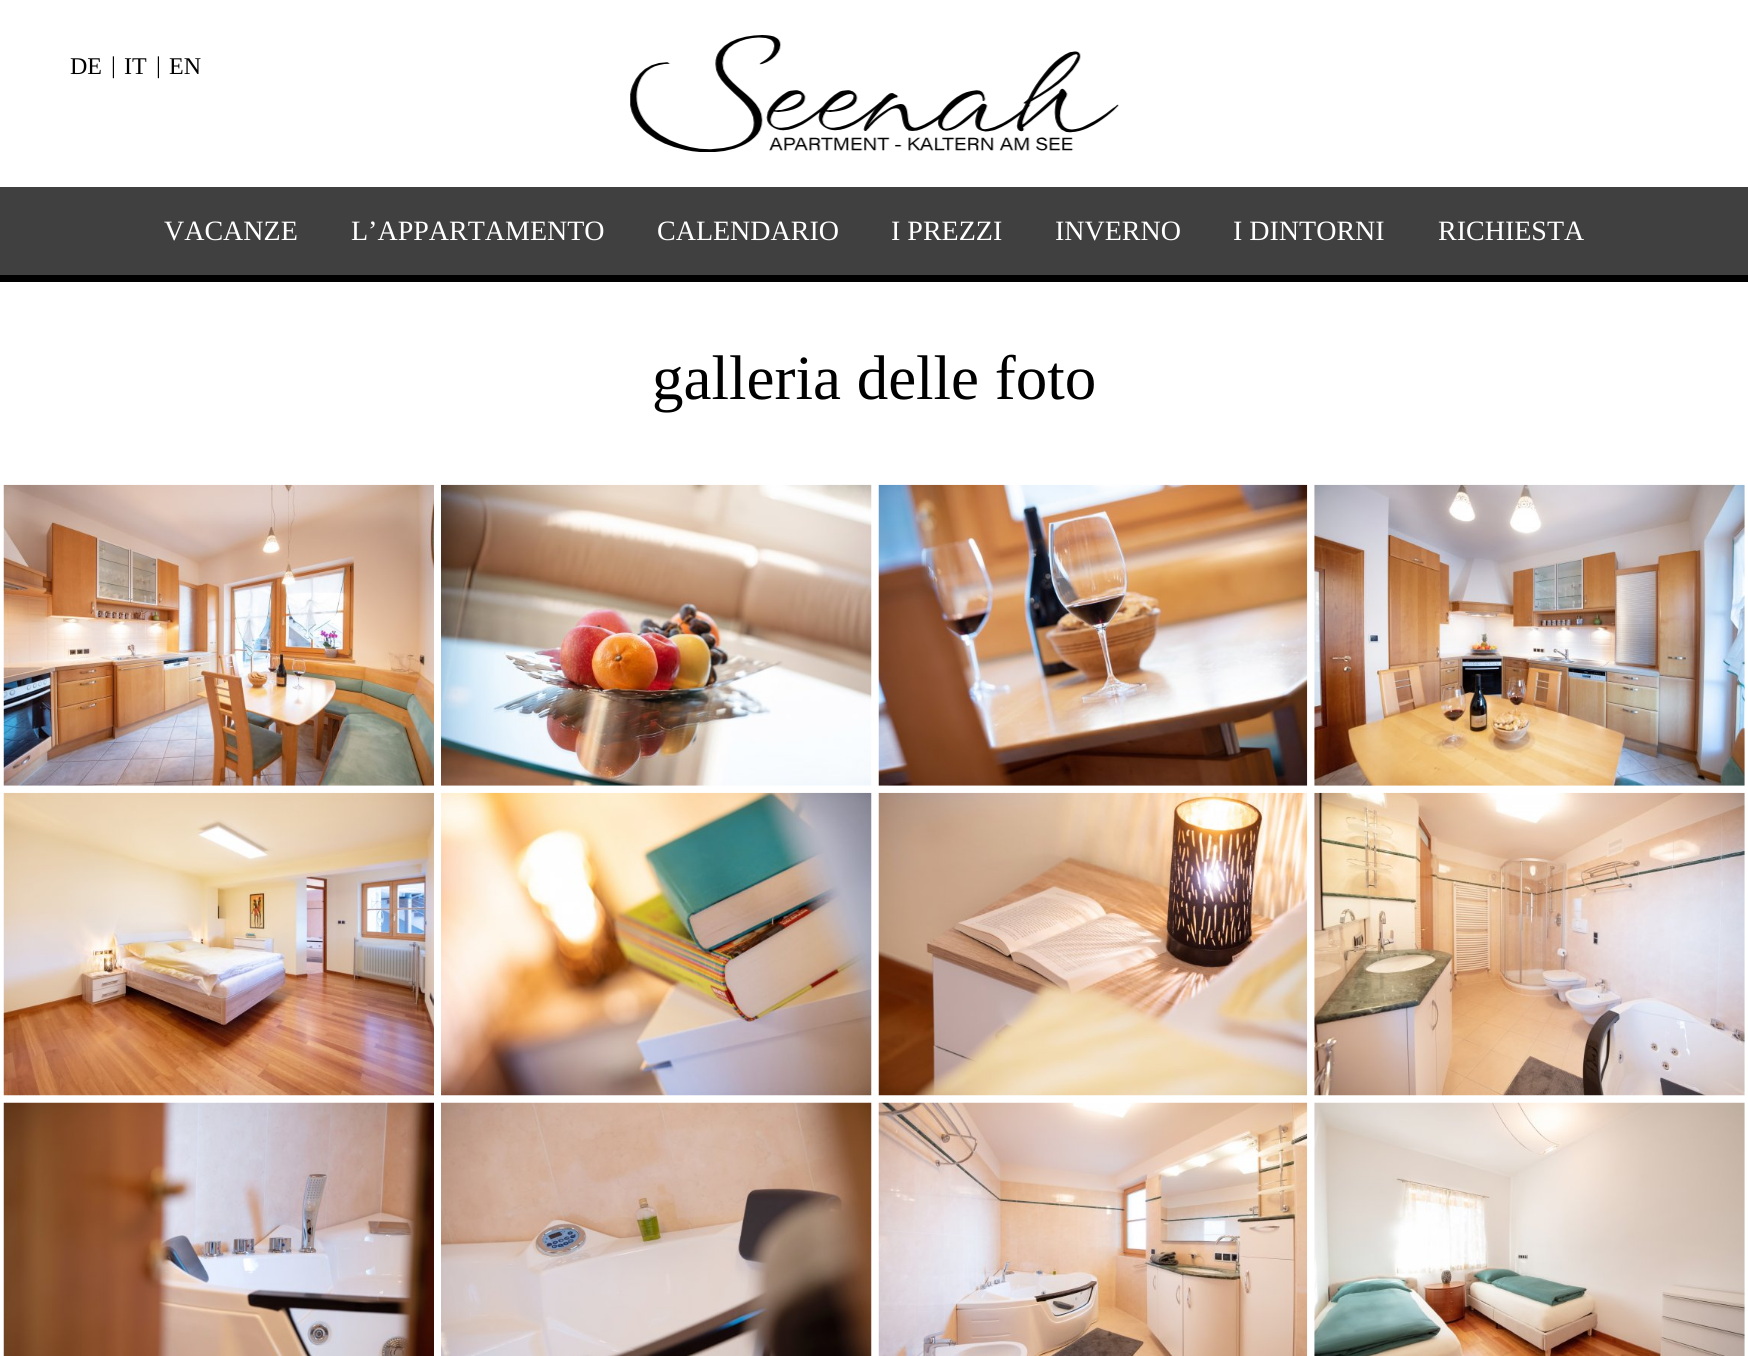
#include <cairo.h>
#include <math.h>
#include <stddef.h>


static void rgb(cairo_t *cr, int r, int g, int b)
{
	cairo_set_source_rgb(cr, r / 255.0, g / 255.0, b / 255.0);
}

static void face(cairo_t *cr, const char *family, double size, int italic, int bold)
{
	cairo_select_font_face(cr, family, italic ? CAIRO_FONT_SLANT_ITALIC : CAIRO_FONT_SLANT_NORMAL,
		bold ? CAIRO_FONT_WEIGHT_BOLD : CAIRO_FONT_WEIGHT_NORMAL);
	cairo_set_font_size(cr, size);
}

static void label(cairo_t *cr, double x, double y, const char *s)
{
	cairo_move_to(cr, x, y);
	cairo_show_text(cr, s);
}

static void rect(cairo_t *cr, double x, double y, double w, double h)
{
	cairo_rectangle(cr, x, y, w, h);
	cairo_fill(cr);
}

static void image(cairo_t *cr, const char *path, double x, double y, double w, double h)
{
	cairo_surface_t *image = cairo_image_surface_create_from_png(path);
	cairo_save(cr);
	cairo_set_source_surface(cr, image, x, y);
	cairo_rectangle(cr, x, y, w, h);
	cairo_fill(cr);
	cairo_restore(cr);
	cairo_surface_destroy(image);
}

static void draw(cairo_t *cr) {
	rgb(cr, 255, 255, 255);
	cairo_paint(cr);
	face(cr, "Liberation Serif", 24, 0, 0);
	rgb(cr, 0, 0, 0);
	label(cr, 70, 74, "DE");
	label(cr, 111, 73, "|");
	label(cr, 124, 74, "IT");
	label(cr, 156, 73, "|");
	label(cr, 169, 74, "EN");
	image(cr, "image0.png", 630, 35, 489, 117);
	rect(cr, 0, 275, 1748, 7);
	rgb(cr, 64, 64, 64);
	rect(cr, 0, 187, 1748, 88);
	face(cr, "Liberation Serif", 28, 0, 0);
	rgb(cr, 255, 255, 255);
	label(cr, 164, 240, "VACANZE");
	label(cr, 351, 240, "L’APPARTAMENTO");
	label(cr, 657, 240, "CALENDARIO");
	label(cr, 891, 240, "I PREZZI");
	label(cr, 1055, 240, "INVERNO");
	label(cr, 1233, 240, "I DINTORNI");
	label(cr, 1438, 240, "RICHIESTA");
	face(cr, "Liberation Serif", 63, 0, 0);
	rgb(cr, 0, 0, 0);
	label(cr, 652, 399, "galleria delle foto");
	image(cr, "image1.png", 3, 484, 431, 302);
	image(cr, "image2.png", 441, 484, 431, 302);
	image(cr, "image3.png", 878, 484, 430, 302);
	image(cr, "image4.png", 1314, 484, 431, 302);
	image(cr, "image5.png", 3, 792, 431, 304);
	image(cr, "image6.png", 441, 792, 431, 304);
	image(cr, "image7.png", 878, 792, 430, 304);
	image(cr, "image8.png", 1314, 792, 431, 304);
	image(cr, "image9.png", 3, 1102, 431, 254);
	image(cr, "image10.png", 441, 1102, 431, 254);
	image(cr, "image11.png", 878, 1102, 430, 254);
	image(cr, "image12.png", 1314, 1102, 431, 254);
}

int main(void) {
	cairo_surface_t *surface = cairo_image_surface_create(CAIRO_FORMAT_RGB24, 1748, 1356);
	cairo_t *cr = cairo_create(surface);
	cairo_font_options_t *options = cairo_font_options_create();
	cairo_font_options_set_hint_metrics(options, CAIRO_HINT_METRICS_OFF);
	cairo_font_options_set_hint_style(options, CAIRO_HINT_STYLE_NONE);
	cairo_set_font_options(cr, options);
	cairo_set_miter_limit(cr, 4);
	draw(cr);
	cairo_surface_write_to_png(surface, "render.png");
	cairo_font_options_destroy(options);
	cairo_destroy(cr);
	cairo_surface_destroy(surface);
	return 0;
}
